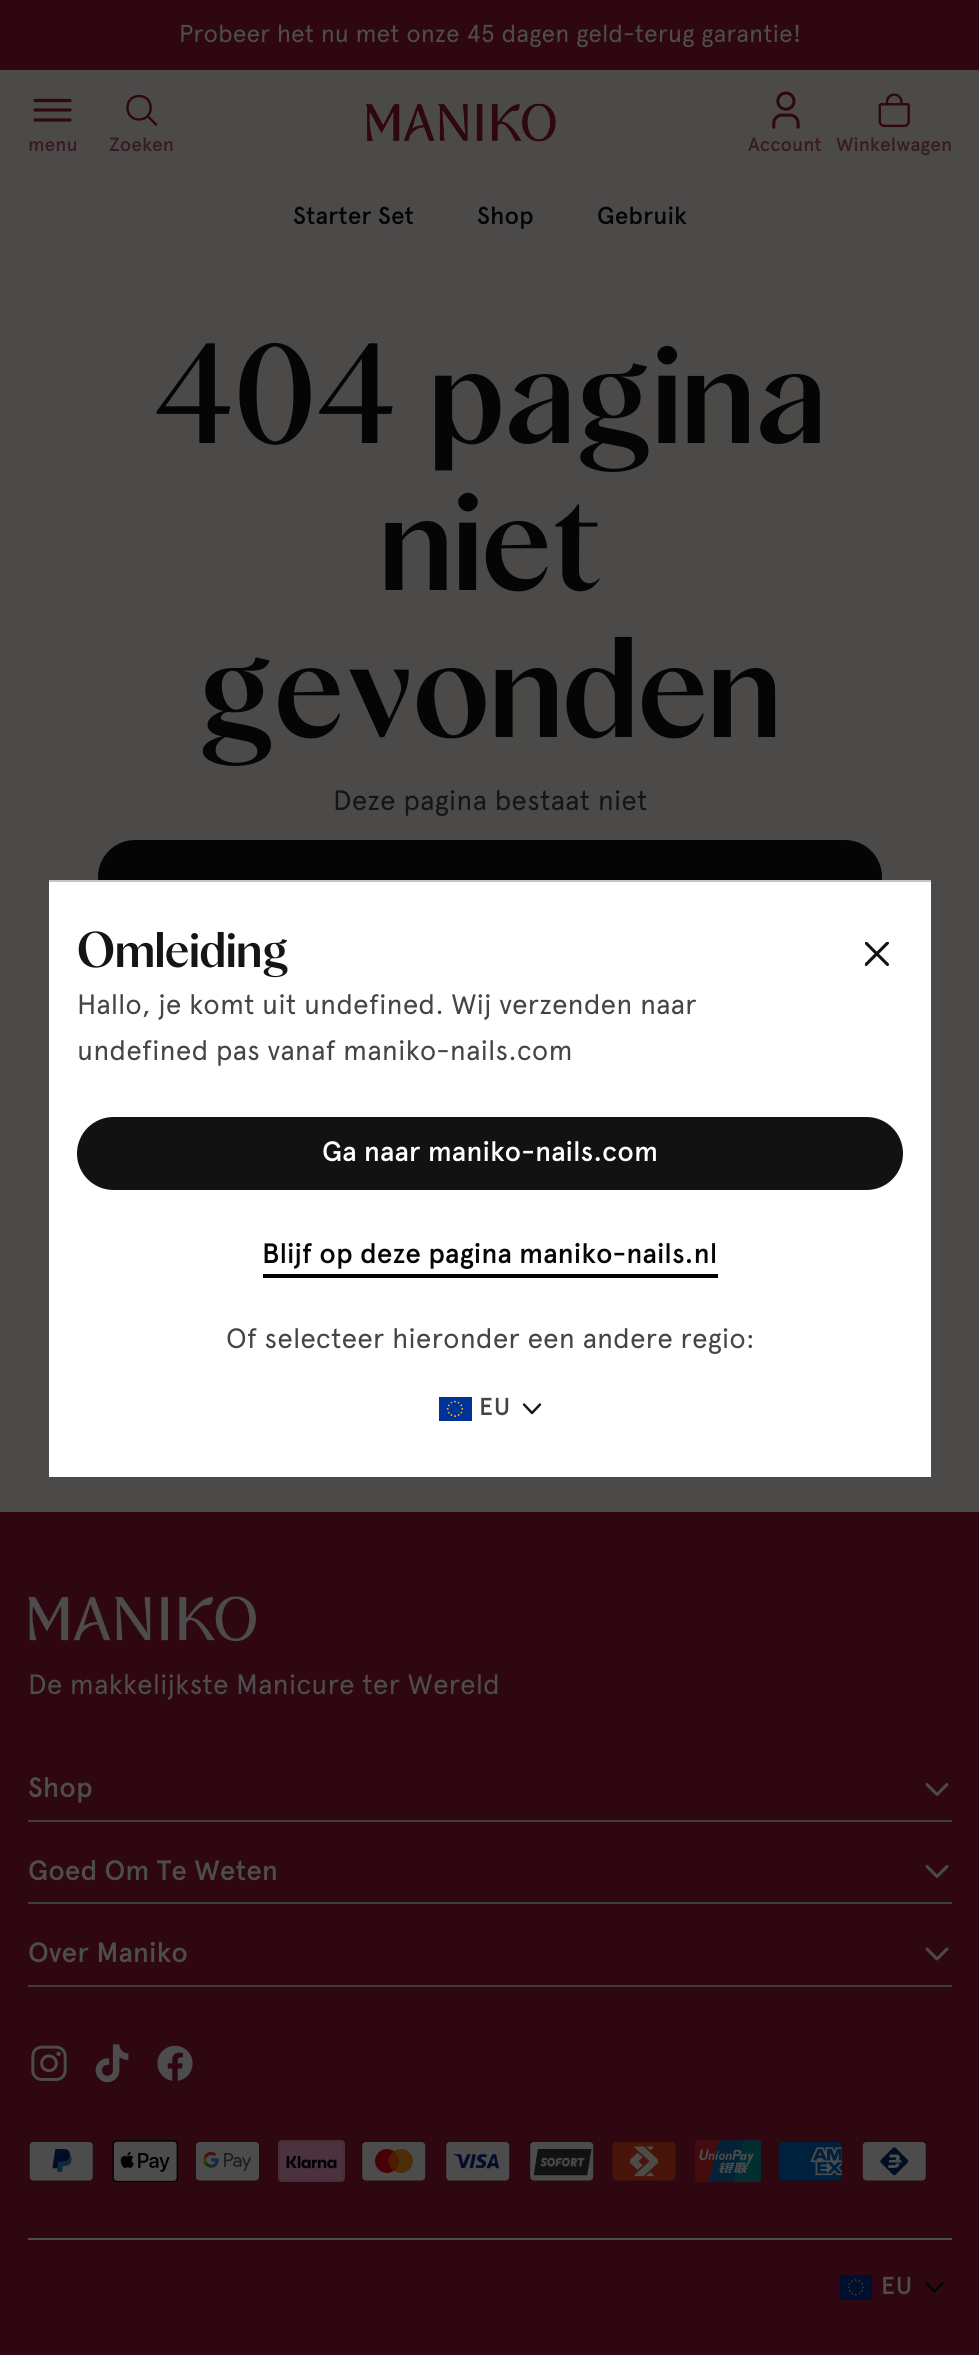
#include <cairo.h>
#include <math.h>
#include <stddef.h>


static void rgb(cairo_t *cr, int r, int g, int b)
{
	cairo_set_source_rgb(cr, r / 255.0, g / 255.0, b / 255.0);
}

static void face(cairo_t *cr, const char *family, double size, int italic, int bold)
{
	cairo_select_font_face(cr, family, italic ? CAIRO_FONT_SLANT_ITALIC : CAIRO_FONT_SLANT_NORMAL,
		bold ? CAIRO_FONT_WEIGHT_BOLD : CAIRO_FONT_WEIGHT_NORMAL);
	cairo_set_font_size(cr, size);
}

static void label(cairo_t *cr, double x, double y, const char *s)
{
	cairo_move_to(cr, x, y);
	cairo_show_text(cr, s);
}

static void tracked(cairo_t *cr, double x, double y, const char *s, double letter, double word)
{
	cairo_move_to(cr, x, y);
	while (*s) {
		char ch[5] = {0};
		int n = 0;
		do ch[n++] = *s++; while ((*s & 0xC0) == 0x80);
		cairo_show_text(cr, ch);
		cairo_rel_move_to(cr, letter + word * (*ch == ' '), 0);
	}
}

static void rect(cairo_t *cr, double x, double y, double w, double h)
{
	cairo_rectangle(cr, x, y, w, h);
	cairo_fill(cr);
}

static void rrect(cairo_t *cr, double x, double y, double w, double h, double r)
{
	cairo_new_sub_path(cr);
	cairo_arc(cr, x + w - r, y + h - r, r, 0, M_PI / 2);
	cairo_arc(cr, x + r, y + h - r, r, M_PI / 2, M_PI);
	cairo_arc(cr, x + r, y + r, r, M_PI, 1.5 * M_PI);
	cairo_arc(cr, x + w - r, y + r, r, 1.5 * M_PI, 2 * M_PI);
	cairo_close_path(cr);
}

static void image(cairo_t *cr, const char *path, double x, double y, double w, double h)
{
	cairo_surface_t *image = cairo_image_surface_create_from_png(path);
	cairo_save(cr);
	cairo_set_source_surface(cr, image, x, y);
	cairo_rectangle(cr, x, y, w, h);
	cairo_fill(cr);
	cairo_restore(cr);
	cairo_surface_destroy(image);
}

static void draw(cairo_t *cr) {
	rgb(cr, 76, 74, 73);
	cairo_paint(cr);
	rgb(cr, 46, 7, 17);
	rect(cr, 0, 0, 979, 70);
	face(cr, "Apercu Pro", 24.5, 0, 0);
	rgb(cr, 77, 77, 77);
	label(cr, 179, 42, "Probeer het nu met onze 45 dagen geld-terug garantie!");
	image(cr, "image0.png", 365, 103, 191, 39);
	cairo_new_path(cr);
	cairo_move_to(cr, 35, 100.5);
	cairo_line_to(cr, 70, 100.5);
	cairo_move_to(cr, 35, 110);
	cairo_line_to(cr, 70, 110);
	cairo_move_to(cr, 35, 120);
	cairo_line_to(cr, 70, 120);
	rgb(cr, 46, 7, 17);
	cairo_set_line_width(cr, 3.2);
	cairo_set_line_cap(cr, CAIRO_LINE_CAP_ROUND);
	cairo_stroke(cr);
	face(cr, "Apercu Pro Medium", 19.25, 0, 0);
	rgb(cr, 55, 27, 34);
	label(cr, 28, 151, "menu");
	cairo_new_path(cr);
	cairo_move_to(cr, 139, 96);
	cairo_curve_to(cr, 123.5, 96, 123.5, 120, 139.5, 119.5);
	cairo_curve_to(cr, 154.5, 119, 154.5, 96, 139, 96);
	cairo_close_path(cr);
	rgb(cr, 46, 7, 17);
	cairo_set_line_width(cr, 2.4);
	cairo_set_line_cap(cr, CAIRO_LINE_CAP_BUTT);
	cairo_stroke(cr);
	cairo_new_path(cr);
	cairo_move_to(cr, 148, 116.5);
	cairo_line_to(cr, 156, 124.5);
	cairo_set_line_cap(cr, CAIRO_LINE_CAP_ROUND);
	cairo_stroke(cr);
	rgb(cr, 55, 27, 34);
	label(cr, 109, 151, "Zoeken");
	image(cr, "image1.png", 772, 91, 28, 38);
	label(cr, 748, 151, "Account");
	image(cr, "image2.png", 878, 93, 32, 35);
	label(cr, 836, 151, "Winkelwagen");
	face(cr, "Apercu Pro Medium", 24.5, 0, 0);
	rgb(cr, 5, 5, 5);
	label(cr, 293, 224, "Starter Set");
	label(cr, 477, 224, "Shop");
	label(cr, 597, 224, "Gebruik");
	face(cr, "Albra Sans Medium", 140, 0, 0);
	label(cr, 153, 443, "404 pagina");
	label(cr, 379, 590, "niet");
	label(cr, 198, 737, "gevonden");
	face(cr, "Apercu Pro", 28, 0, 0);
	rgb(cr, 21, 21, 21);
	label(cr, 333, 810, "Deze pagina bestaat niet");
	rgb(cr, 5, 5, 5);
	rrect(cr, 98, 840, 784, 74, 37);
	cairo_fill(cr);
	rgb(cr, 255, 255, 255);
	rect(cr, 49, 882, 882, 595);
	rgb(cr, 196, 196, 196);
	rect(cr, 49, 880, 882, 2);
	face(cr, "Albra Sans Medium", 49, 0, 0);
	rgb(cr, 21, 21, 21);
	label(cr, 77, 967, "Omleiding");
	cairo_save(cr);
	cairo_rectangle(cr, 865, 942, 24, 24);
	cairo_clip(cr);
	cairo_new_path(cr);
	cairo_move_to(cr, 887.5, 964.5);
	cairo_line_to(cr, 866, 943);
	cairo_move_to(cr, 887.5, 943);
	cairo_line_to(cr, 866, 964.5);
	rgb(cr, 18, 18, 18);
	cairo_set_line_width(cr, 3.1);
	cairo_set_line_join(cr, CAIRO_LINE_JOIN_ROUND);
	cairo_stroke(cr);
	cairo_restore(cr);
	face(cr, "Apercu Pro", 28, 0, 0);
	rgb(cr, 69, 69, 69);
	label(cr, 77, 1014, "Hallo, je komt uit undefined. Wij verzenden naar");
	label(cr, 77, 1060, "undefined pas vanaf maniko-nails.com");
	rgb(cr, 18, 18, 18);
	rrect(cr, 77, 1117, 826, 73, 36.5);
	cairo_fill(cr);
	face(cr, "Apercu Pro Medium", 28, 0, 0);
	rgb(cr, 255, 255, 255);
	label(cr, 322, 1161, "Ga naar maniko-nails.com");
	rgb(cr, 5, 5, 5);
	label(cr, 262, 1263, "Blijf op deze pagina maniko-nails.nl");
	rgb(cr, 0, 0, 0);
	rect(cr, 263, 1274, 455, 4);
	face(cr, "Apercu Pro", 28, 0, 0);
	rgb(cr, 69, 69, 69);
	label(cr, 226, 1348, "Of selecteer hieronder een andere regio:");
	image(cr, "image3.png", 439, 1397, 33, 24);
	face(cr, "Apercu Pro Medium", 24.5, 0, 0);
	tracked(cr, 479, 1415, "EU", 1, 0);
	cairo_new_path(cr);
	cairo_move_to(cr, 524, 1404.5);
	cairo_line_to(cr, 532, 1413);
	cairo_line_to(cr, 540, 1404.5);
	rgb(cr, 18, 18, 18);
	cairo_set_line_join(cr, CAIRO_LINE_JOIN_ROUND);
	cairo_stroke(cr);
	rgb(cr, 46, 7, 17);
	rect(cr, 0, 1512, 979, 843);
	image(cr, "image4.png", 28, 1596, 228, 46);
	face(cr, "Apercu Pro", 28, 0, 0);
	rgb(cr, 77, 77, 77);
	label(cr, 28, 1694, "De makkelijkste Manicure ter Wereld");
	rgb(cr, 61, 61, 61);
	rect(cr, 28, 1820, 924, 2);
	face(cr, "Apercu Pro Medium", 28, 0, 0);
	rgb(cr, 77, 77, 77);
	label(cr, 28, 1797, "Shop");
	cairo_new_path(cr);
	cairo_move_to(cr, 927, 1784.5);
	cairo_line_to(cr, 937, 1794.5);
	cairo_line_to(cr, 947, 1784.5);
	rgb(cr, 76, 74, 73);
	cairo_set_line_width(cr, 3);
	cairo_stroke(cr);
	rgb(cr, 61, 61, 61);
	rect(cr, 28, 1902, 924, 2);
	rgb(cr, 77, 77, 77);
	label(cr, 28, 1880, "Goed Om Te Weten");
	cairo_new_path(cr);
	cairo_move_to(cr, 927, 1866.5);
	cairo_line_to(cr, 937, 1876.5);
	cairo_line_to(cr, 947, 1866.5);
	rgb(cr, 76, 74, 73);
	cairo_stroke(cr);
	rgb(cr, 61, 61, 61);
	rect(cr, 28, 1985, 924, 2);
	rgb(cr, 77, 77, 77);
	label(cr, 28, 1962, "Over Maniko");
	cairo_new_path(cr);
	cairo_move_to(cr, 927, 1949);
	cairo_line_to(cr, 937, 1959);
	cairo_line_to(cr, 947, 1949);
	rgb(cr, 76, 74, 73);
	cairo_stroke(cr);
	image(cr, "image5.png", 31, 2045, 36, 36);
	image(cr, "image6.png", 95, 2044, 34, 39);
	image(cr, "image7.png", 157, 2045, 36, 36);
	image(cr, "image8.png", 28, 2140, 67, 42);
	image(cr, "image9.png", 112, 2140, 67, 42);
	image(cr, "image10.png", 194, 2140, 67, 42);
	image(cr, "image11.png", 278, 2140, 67, 42);
	image(cr, "image12.png", 361, 2140, 66, 42);
	image(cr, "image13.png", 445, 2140, 66, 42);
	image(cr, "image14.png", 529, 2140, 66, 42);
	image(cr, "image15.png", 611, 2140, 66, 42);
	image(cr, "image16.png", 695, 2140, 66, 42);
	image(cr, "image17.png", 777, 2140, 67, 42);
	image(cr, "image18.png", 861, 2140, 67, 42);
	rgb(cr, 77, 77, 77);
	rect(cr, 28, 2238, 924, 2);
	image(cr, "image19.png", 840, 2275, 32, 25);
	face(cr, "Apercu Pro Medium", 24.5, 0, 0);
	tracked(cr, 881, 2294, "EU", 1, 0);
	cairo_new_path(cr);
	cairo_move_to(cr, 926.5, 2283);
	cairo_line_to(cr, 934.5, 2291.5);
	cairo_line_to(cr, 942.5, 2283);
	rgb(cr, 5, 5, 5);
	cairo_set_line_width(cr, 2.4);
	cairo_stroke(cr);
}

int main(void) {
	cairo_surface_t *surface = cairo_image_surface_create(CAIRO_FORMAT_RGB24, 979, 2355);
	cairo_t *cr = cairo_create(surface);
	cairo_font_options_t *options = cairo_font_options_create();
	cairo_font_options_set_hint_metrics(options, CAIRO_HINT_METRICS_OFF);
	cairo_font_options_set_hint_style(options, CAIRO_HINT_STYLE_NONE);
	cairo_set_font_options(cr, options);
	cairo_set_miter_limit(cr, 4);
	draw(cr);
	cairo_surface_write_to_png(surface, "render.png");
	cairo_font_options_destroy(options);
	cairo_destroy(cr);
	cairo_surface_destroy(surface);
	return 0;
}
